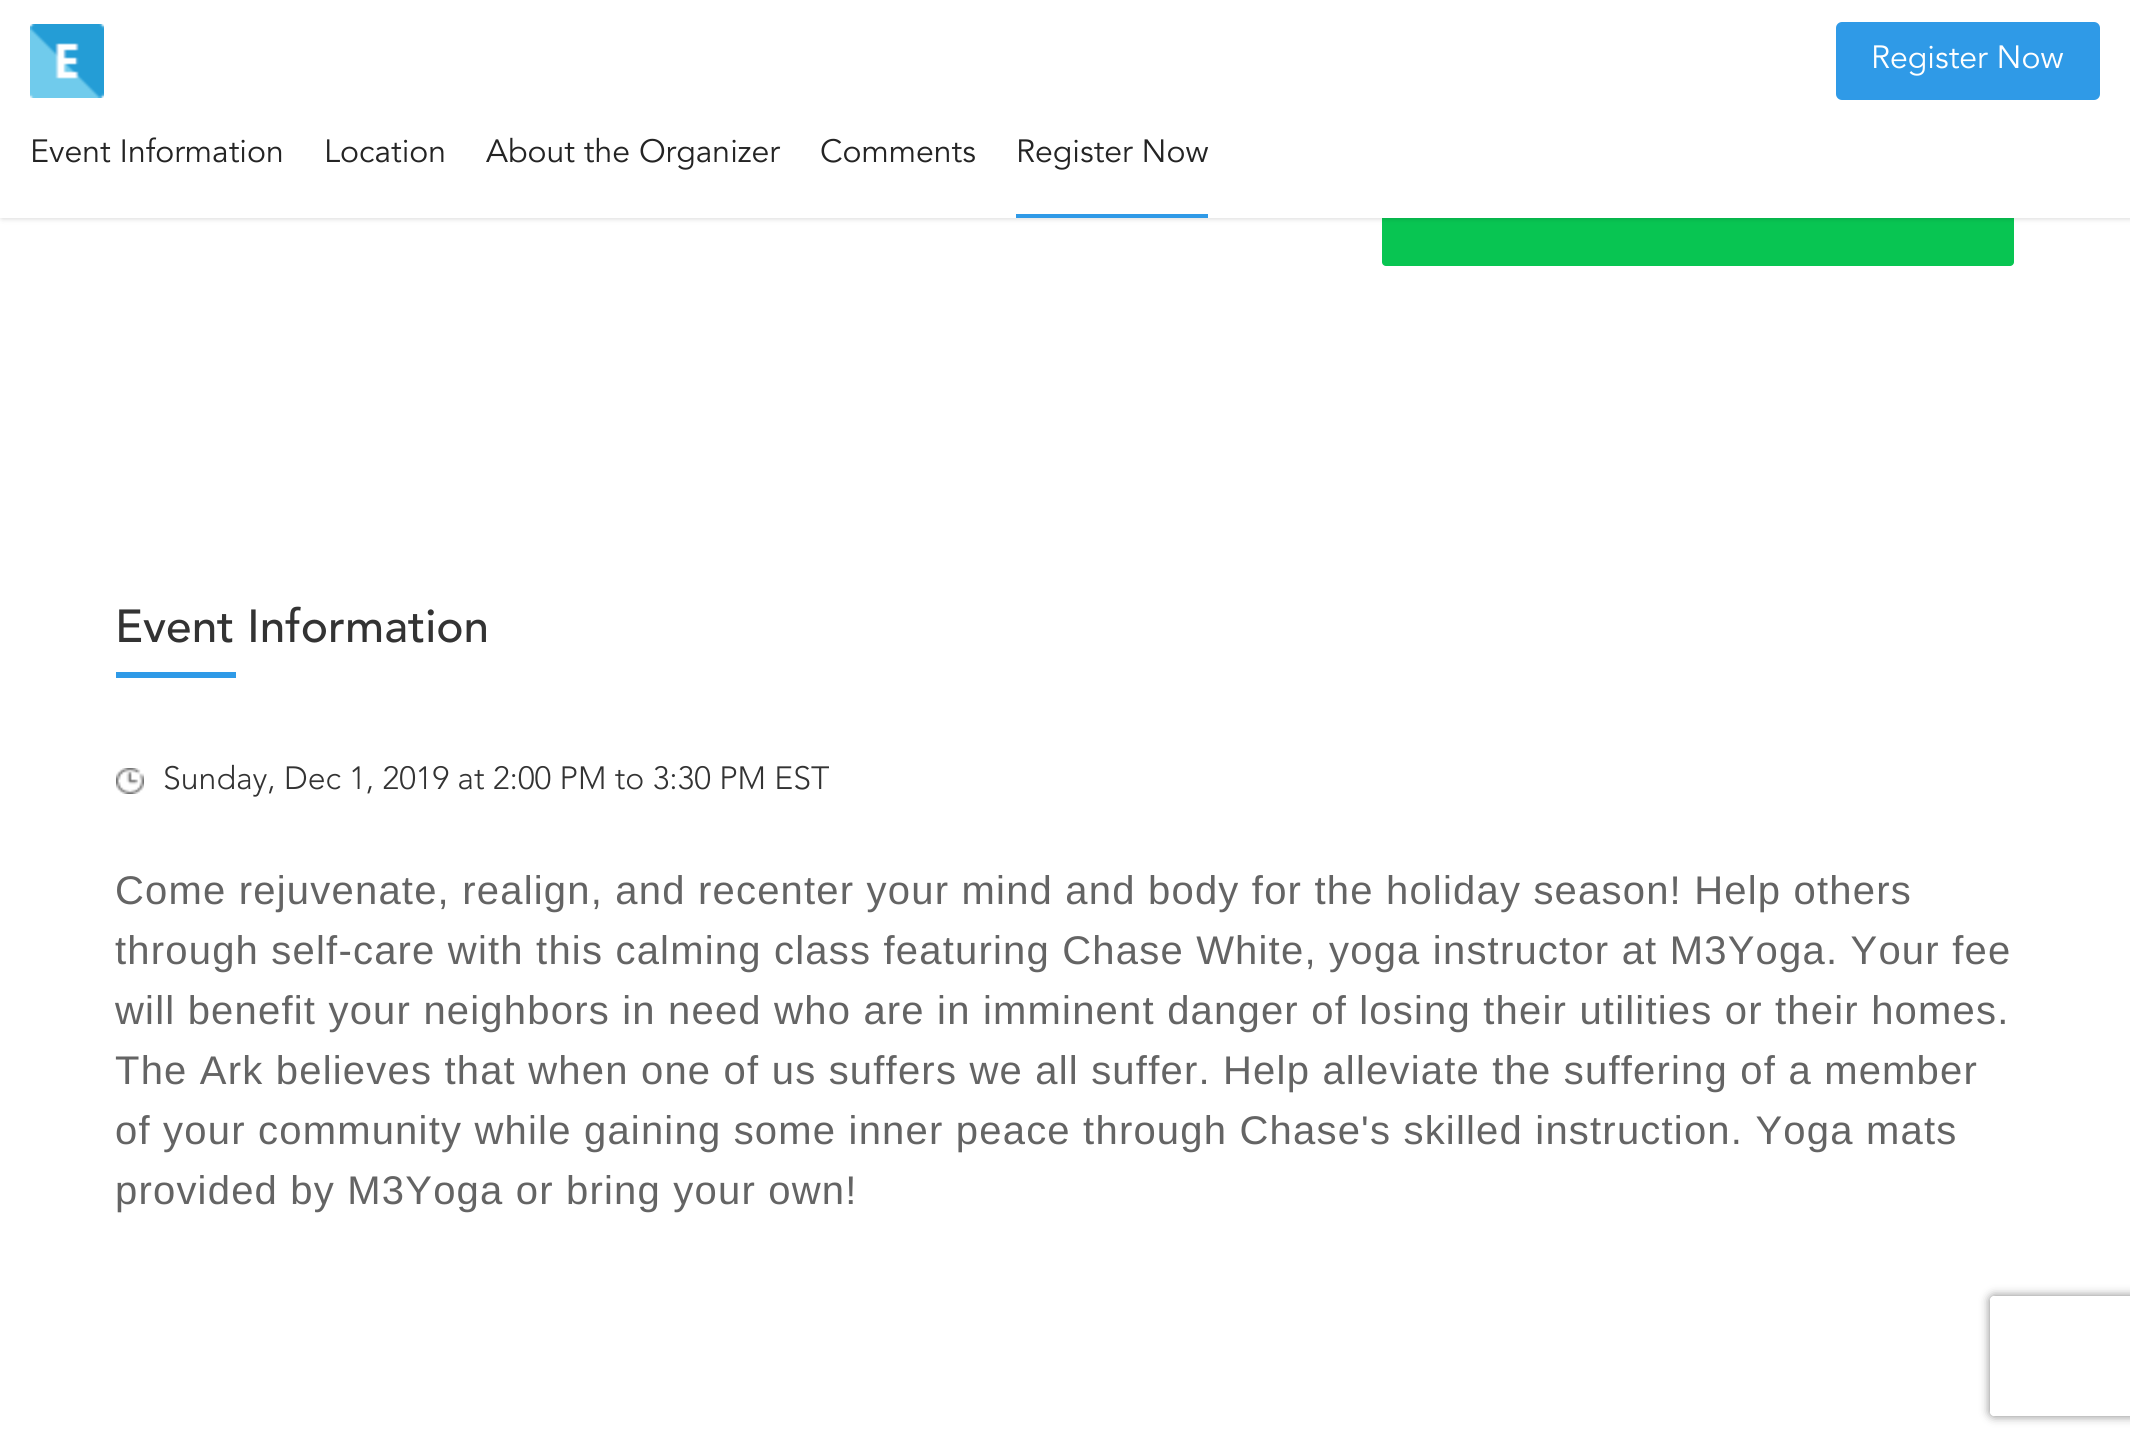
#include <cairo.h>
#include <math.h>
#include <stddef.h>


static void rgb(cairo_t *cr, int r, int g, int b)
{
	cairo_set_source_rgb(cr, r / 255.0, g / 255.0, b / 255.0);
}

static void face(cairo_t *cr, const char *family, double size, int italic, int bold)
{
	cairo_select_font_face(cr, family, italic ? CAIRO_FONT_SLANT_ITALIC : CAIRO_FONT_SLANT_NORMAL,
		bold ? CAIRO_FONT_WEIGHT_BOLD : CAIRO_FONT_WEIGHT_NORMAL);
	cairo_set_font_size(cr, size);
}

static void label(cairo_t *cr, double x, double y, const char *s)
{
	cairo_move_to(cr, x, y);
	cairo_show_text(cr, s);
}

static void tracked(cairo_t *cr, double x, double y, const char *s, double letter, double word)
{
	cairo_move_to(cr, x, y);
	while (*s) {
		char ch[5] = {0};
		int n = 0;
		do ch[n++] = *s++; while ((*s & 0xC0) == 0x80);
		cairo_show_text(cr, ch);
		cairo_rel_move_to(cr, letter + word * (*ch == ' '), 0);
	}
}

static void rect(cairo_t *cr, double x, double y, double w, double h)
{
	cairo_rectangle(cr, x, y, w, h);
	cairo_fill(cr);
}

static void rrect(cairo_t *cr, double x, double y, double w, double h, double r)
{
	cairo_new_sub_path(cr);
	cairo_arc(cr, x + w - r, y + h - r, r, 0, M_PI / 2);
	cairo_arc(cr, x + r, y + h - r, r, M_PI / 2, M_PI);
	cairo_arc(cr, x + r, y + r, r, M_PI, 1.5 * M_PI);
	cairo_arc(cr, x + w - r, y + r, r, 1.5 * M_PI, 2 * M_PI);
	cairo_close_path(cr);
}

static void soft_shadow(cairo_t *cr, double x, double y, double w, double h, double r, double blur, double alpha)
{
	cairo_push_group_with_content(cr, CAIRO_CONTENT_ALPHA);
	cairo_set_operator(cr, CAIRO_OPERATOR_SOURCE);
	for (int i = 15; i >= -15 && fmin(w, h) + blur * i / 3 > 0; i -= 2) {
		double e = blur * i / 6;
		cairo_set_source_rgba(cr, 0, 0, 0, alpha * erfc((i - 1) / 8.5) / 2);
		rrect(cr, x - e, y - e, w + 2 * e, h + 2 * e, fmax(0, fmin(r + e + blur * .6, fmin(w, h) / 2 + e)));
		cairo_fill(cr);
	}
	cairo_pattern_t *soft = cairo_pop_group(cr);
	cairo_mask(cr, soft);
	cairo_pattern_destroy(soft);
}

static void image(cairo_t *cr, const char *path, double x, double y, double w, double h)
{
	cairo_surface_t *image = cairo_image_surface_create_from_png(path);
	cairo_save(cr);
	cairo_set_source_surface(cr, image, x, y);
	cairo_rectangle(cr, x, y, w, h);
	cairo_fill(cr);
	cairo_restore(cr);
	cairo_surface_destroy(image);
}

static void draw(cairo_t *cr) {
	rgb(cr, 255, 255, 255);
	cairo_paint(cr);
	rgb(cr, 8, 197, 82);
	rrect(cr, 1382, 168, 632, 98, 4);
	cairo_fill(cr);
	rgb(cr, 0, 0, 0);
	soft_shadow(cr, 2, 0, 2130, 218, 0, 3, 0.2);
	rgb(cr, 255, 255, 255);
	rect(cr, 0, 0, 2130, 218);
	image(cr, "image0.png", 30, 24, 74, 74);
	rgb(cr, 47, 154, 231);
	rrect(cr, 1836, 22, 264, 78, 6);
	cairo_fill(cr);
	face(cr, "Avenir", 32, 0, 0);
	rgb(cr, 255, 255, 255);
	label(cr, 1871, 68, "Register Now");
	rgb(cr, 36, 36, 36);
	label(cr, 30, 162, "Event Information");
	label(cr, 324, 162, "Location");
	label(cr, 486, 162, "About the Organizer");
	label(cr, 820, 162, "Comments");
	rgb(cr, 47, 154, 231);
	rect(cr, 1016, 214, 192, 4);
	rgb(cr, 36, 36, 36);
	label(cr, 1016, 162, "Register Now");
	face(cr, "Avenir Medium", 46, 0, 0);
	rgb(cr, 51, 51, 51);
	label(cr, 115, 642, "Event Information");
	rgb(cr, 47, 154, 231);
	rect(cr, 116, 672, 120, 6);
	image(cr, "image1.png", 116, 768, 28, 26);
	face(cr, "Avenir Light", 32, 0, 0);
	rgb(cr, 51, 51, 51);
	label(cr, 163, 789, "Sunday, Dec 1, 2019 at 2:00 PM to 3:30 PM EST");
	face(cr, "Liberation Sans", 40, 0, 0);
	rgb(cr, 100, 100, 100);
	tracked(cr, 115, 904, "Come rejuvenate, realign, and recenter your mind and body for the holiday season! Help others", 1.2, 0);
	tracked(cr, 115, 964, "through self-care with this calming class featuring Chase White, yoga instructor at M3Yoga. Your fee", 1.2, 0);
	tracked(cr, 115, 1024, "will benefit your neighbors in need who are in imminent danger of losing their utilities or their homes.", 1.2, 0);
	tracked(cr, 115, 1084, "The Ark believes that when one of us suffers we all suffer. Help alleviate the suffering of a member", 1.2, 0);
	tracked(cr, 115, 1144, "of your community while gaining some inner peace through Chase's skilled instruction. Yoga mats", 1.2, 0);
	tracked(cr, 115, 1204, "provided by M3Yoga or bring your own!", 1.2, 0);
	cairo_save(cr);
	cairo_set_fill_rule(cr, CAIRO_FILL_RULE_EVEN_ODD);
	cairo_new_path(cr);
	cairo_move_to(cr, 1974, 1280);
	cairo_line_to(cr, 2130, 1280);
	cairo_line_to(cr, 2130, 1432);
	cairo_line_to(cr, 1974, 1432);
	cairo_close_path(cr);
	cairo_move_to(cr, 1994, 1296);
	cairo_line_to(cr, 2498, 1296);
	cairo_curve_to(cr, 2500, 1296, 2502, 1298, 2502, 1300);
	cairo_line_to(cr, 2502, 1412);
	cairo_curve_to(cr, 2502, 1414, 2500, 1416, 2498, 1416);
	cairo_line_to(cr, 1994, 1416);
	cairo_curve_to(cr, 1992, 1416, 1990, 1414, 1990, 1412);
	cairo_line_to(cr, 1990, 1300);
	cairo_curve_to(cr, 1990, 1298, 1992, 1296, 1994, 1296);
	cairo_close_path(cr);
	cairo_clip(cr);
	rgb(cr, 128, 128, 128);
	soft_shadow(cr, 1990, 1296, 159, 120, 4, 5, 1);
	cairo_restore(cr);
}

int main(void) {
	cairo_surface_t *surface = cairo_image_surface_create(CAIRO_FORMAT_RGB24, 2130, 1444);
	cairo_t *cr = cairo_create(surface);
	cairo_font_options_t *options = cairo_font_options_create();
	cairo_font_options_set_hint_metrics(options, CAIRO_HINT_METRICS_OFF);
	cairo_font_options_set_hint_style(options, CAIRO_HINT_STYLE_NONE);
	cairo_set_font_options(cr, options);
	cairo_set_miter_limit(cr, 4);
	draw(cr);
	cairo_surface_write_to_png(surface, "render.png");
	cairo_font_options_destroy(options);
	cairo_destroy(cr);
	cairo_surface_destroy(surface);
	return 0;
}
